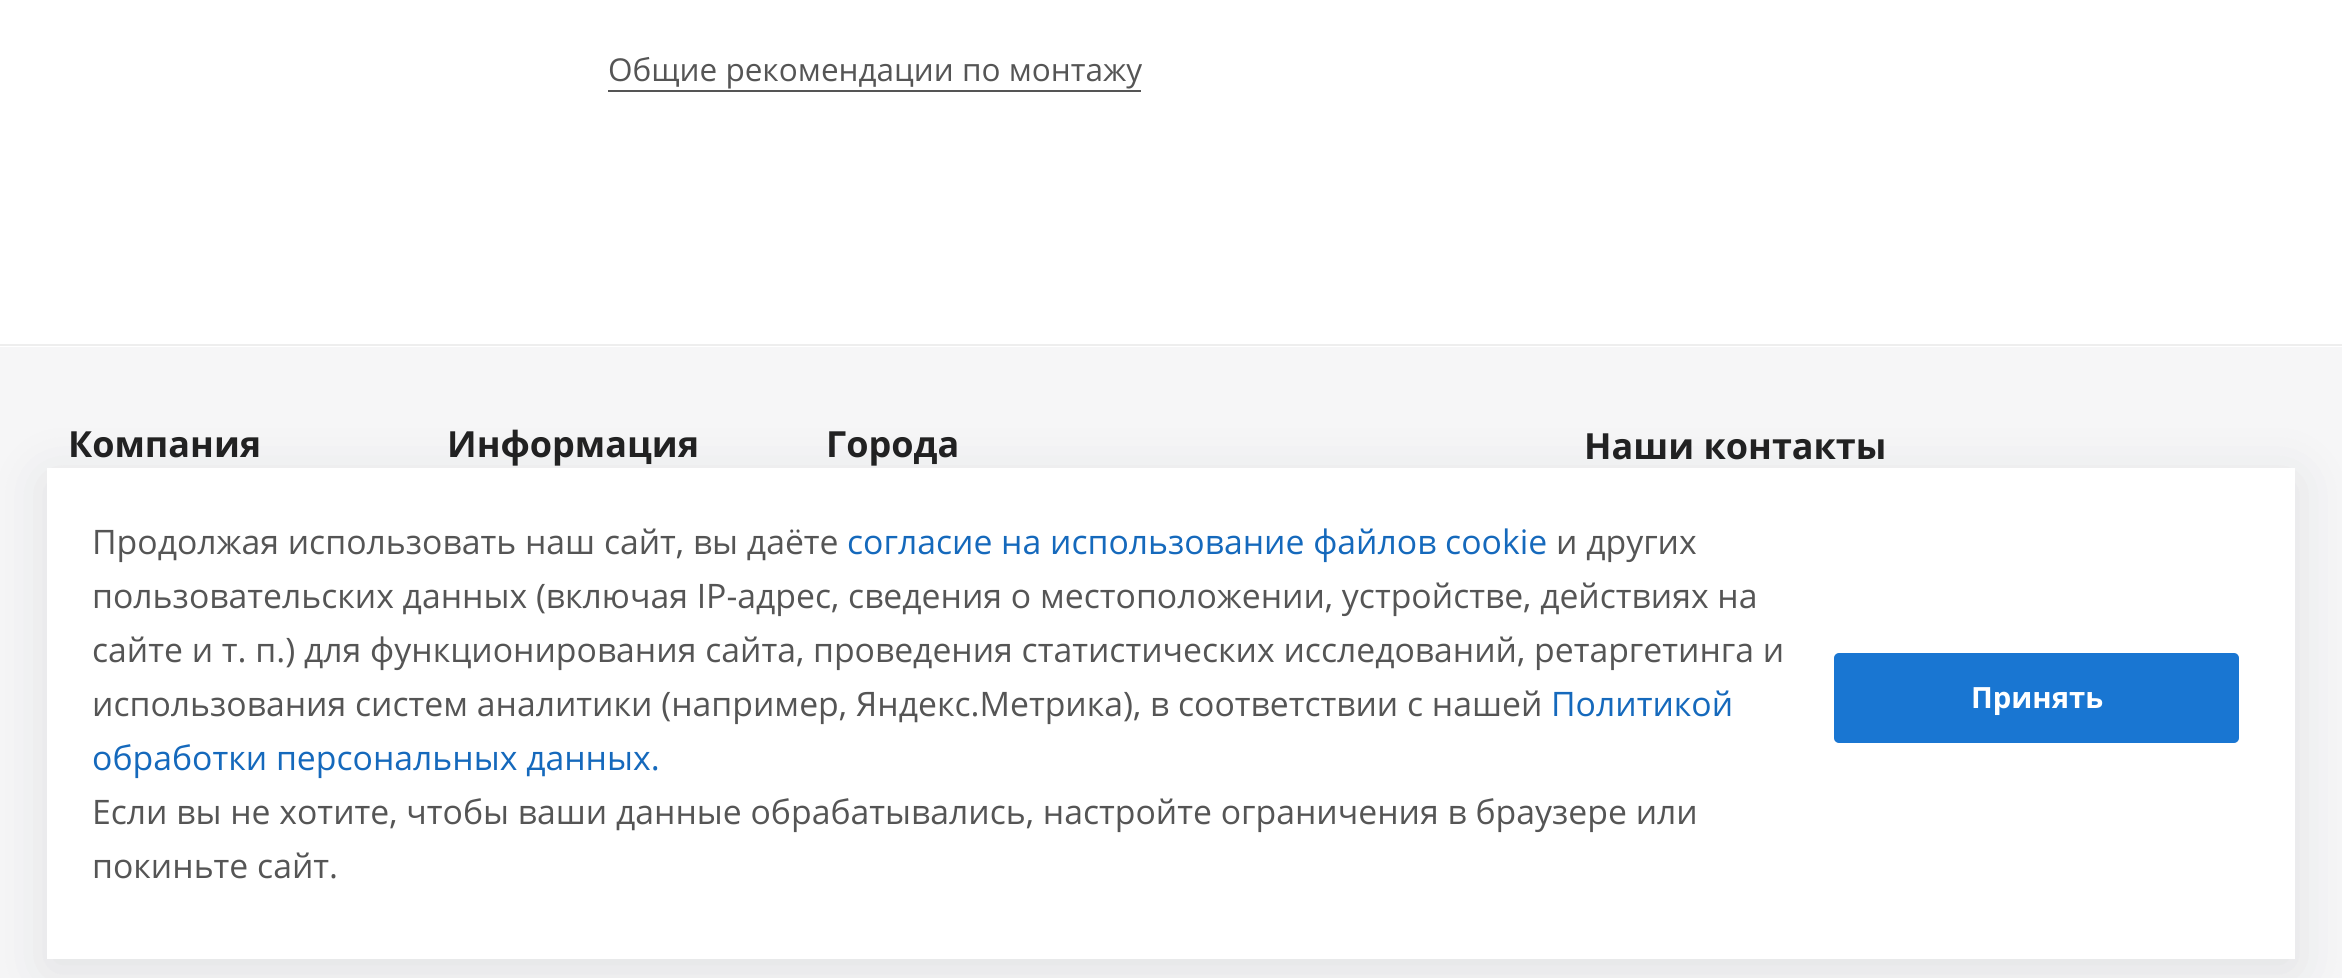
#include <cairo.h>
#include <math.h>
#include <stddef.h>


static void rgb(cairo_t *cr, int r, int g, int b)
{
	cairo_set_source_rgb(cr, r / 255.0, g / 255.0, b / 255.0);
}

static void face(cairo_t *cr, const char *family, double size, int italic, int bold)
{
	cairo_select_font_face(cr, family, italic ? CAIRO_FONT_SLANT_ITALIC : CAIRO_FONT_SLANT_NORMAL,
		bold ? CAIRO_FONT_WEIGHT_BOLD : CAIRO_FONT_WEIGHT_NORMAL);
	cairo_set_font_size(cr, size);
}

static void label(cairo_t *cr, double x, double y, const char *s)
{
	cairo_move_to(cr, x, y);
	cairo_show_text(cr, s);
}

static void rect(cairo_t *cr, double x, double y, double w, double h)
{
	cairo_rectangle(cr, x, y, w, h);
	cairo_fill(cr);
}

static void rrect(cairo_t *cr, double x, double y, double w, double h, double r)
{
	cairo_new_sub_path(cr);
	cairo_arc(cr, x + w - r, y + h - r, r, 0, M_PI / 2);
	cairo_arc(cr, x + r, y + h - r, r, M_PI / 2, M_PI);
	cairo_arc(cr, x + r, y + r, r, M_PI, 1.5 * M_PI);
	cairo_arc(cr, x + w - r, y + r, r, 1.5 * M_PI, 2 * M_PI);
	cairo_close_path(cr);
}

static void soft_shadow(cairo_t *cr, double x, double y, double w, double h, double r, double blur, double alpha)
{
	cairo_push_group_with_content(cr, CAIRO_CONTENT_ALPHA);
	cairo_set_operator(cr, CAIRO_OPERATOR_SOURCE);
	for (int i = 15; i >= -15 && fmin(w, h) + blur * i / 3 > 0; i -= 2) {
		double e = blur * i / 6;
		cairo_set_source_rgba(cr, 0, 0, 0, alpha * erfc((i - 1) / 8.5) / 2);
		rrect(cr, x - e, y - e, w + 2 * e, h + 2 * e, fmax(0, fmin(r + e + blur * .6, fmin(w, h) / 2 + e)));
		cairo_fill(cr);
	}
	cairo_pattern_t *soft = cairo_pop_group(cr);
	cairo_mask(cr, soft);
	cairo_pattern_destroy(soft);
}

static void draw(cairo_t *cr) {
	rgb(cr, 255, 255, 255);
	cairo_paint(cr);
	face(cr, "Open Sans", 31.5, 0, 0);
	rgb(cr, 85, 85, 85);
	label(cr, 608, 81, "Общие рекомендации по монтажу");
	rect(cr, 608, 90, 533, 2);
	rgb(cr, 238, 238, 238);
	rect(cr, 0, 344, 2342, 2);
	rgb(cr, 246, 246, 247);
	rect(cr, 0, 347, 2342, 631);
	face(cr, "Open Sans", 36, 0, 1);
	rgb(cr, 34, 34, 34);
	label(cr, 68, 457, "Компания");
	label(cr, 447, 457, "Информация");
	label(cr, 826, 457, "Города");
	label(cr, 1584, 459, "Наши контакты");
	rgb(cr, 18, 25, 38);
	soft_shadow(cr, 47, 479, 2248, 491, 0, 28, 0.1);
	rgb(cr, 255, 255, 255);
	rect(cr, 47, 468, 2248, 491);
	face(cr, "Open Sans", 33.75, 0, 0);
	rgb(cr, 85, 85, 85);
	label(cr, 92, 554, "Продолжая использовать наш сайт, вы даёте");
	rgb(cr, 21, 105, 188);
	label(cr, 847, 554, "согласие на использование файлов cookie");
	rgb(cr, 85, 85, 85);
	label(cr, 1556, 554, "и других");
	label(cr, 92, 608, "пользовательских данных (включая IP-адрес, сведения о местоположении, устройстве, действиях на");
	label(cr, 92, 662, "сайте и т. п.) для функционирования сайта, проведения статистических исследований, ретаргетинга и");
	label(cr, 92, 716, "использования систем аналитики (например, Яндекс.Метрика), в соответствии с нашей");
	rgb(cr, 21, 105, 188);
	label(cr, 1551, 716, "Политикой");
	label(cr, 92, 770, "обработки персональных данных.");
	rgb(cr, 85, 85, 85);
	label(cr, 92, 824, "Если вы не хотите, чтобы ваши данные обрабатывались, настройте ограничения в браузере или");
	label(cr, 92, 878, "покиньте сайт.");
	rgb(cr, 25, 118, 210);
	rrect(cr, 1835, 654, 403, 88, 4);
	cairo_fill_preserve(cr);
	cairo_stroke(cr);
	face(cr, "Open Sans", 29.25, 0, 1);
	rgb(cr, 255, 255, 255);
	label(cr, 1971, 708, "Принять");
}

int main(void) {
	cairo_surface_t *surface = cairo_image_surface_create(CAIRO_FORMAT_RGB24, 2342, 978);
	cairo_t *cr = cairo_create(surface);
	cairo_font_options_t *options = cairo_font_options_create();
	cairo_font_options_set_hint_metrics(options, CAIRO_HINT_METRICS_OFF);
	cairo_font_options_set_hint_style(options, CAIRO_HINT_STYLE_NONE);
	cairo_set_font_options(cr, options);
	cairo_set_miter_limit(cr, 4);
	draw(cr);
	cairo_surface_write_to_png(surface, "render.png");
	cairo_font_options_destroy(options);
	cairo_destroy(cr);
	cairo_surface_destroy(surface);
	return 0;
}
